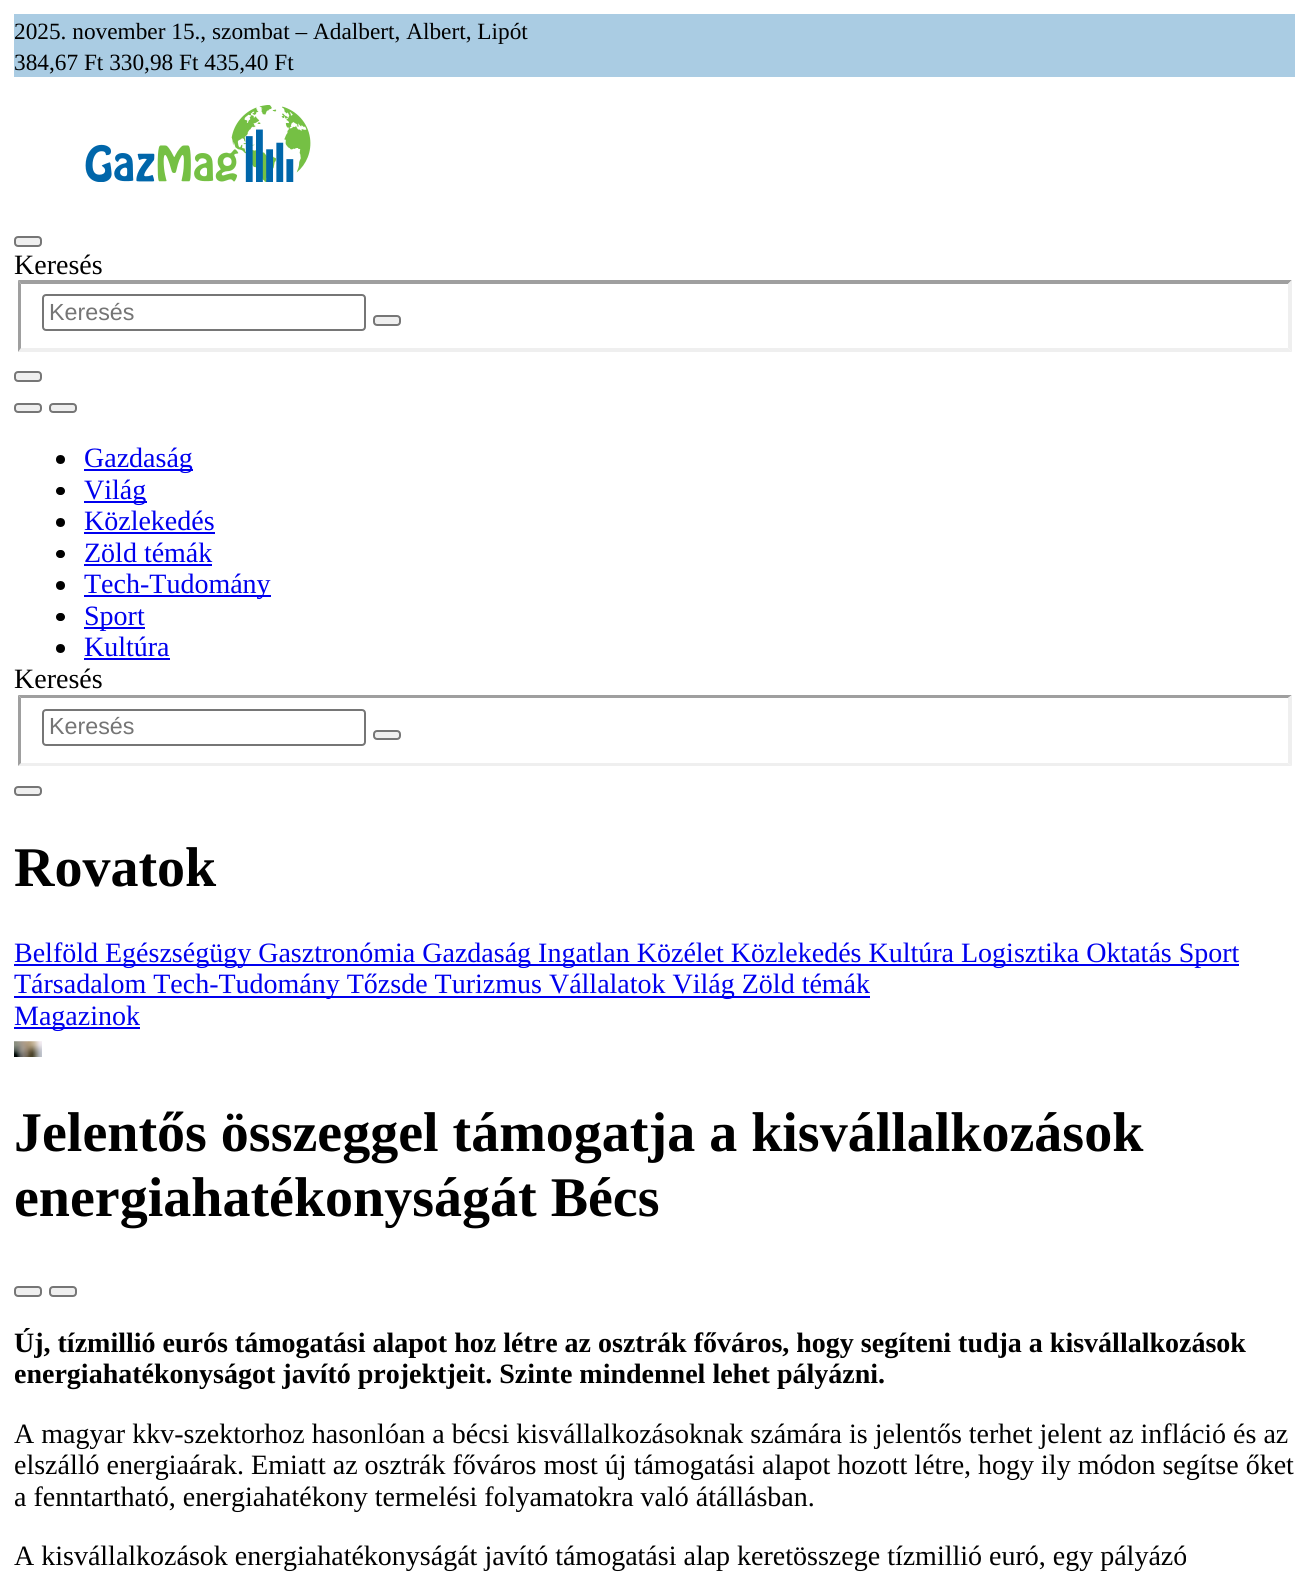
#include <cairo.h>
#include <math.h>
#include <stddef.h>


static void rgb(cairo_t *cr, int r, int g, int b)
{
	cairo_set_source_rgb(cr, r / 255.0, g / 255.0, b / 255.0);
}

static void face(cairo_t *cr, const char *family, double size, int italic, int bold)
{
	cairo_select_font_face(cr, family, italic ? CAIRO_FONT_SLANT_ITALIC : CAIRO_FONT_SLANT_NORMAL,
		bold ? CAIRO_FONT_WEIGHT_BOLD : CAIRO_FONT_WEIGHT_NORMAL);
	cairo_set_font_size(cr, size);
}

static void label(cairo_t *cr, double x, double y, const char *s)
{
	cairo_move_to(cr, x, y);
	cairo_show_text(cr, s);
}

static void rect(cairo_t *cr, double x, double y, double w, double h)
{
	cairo_rectangle(cr, x, y, w, h);
	cairo_fill(cr);
}

static void rrect(cairo_t *cr, double x, double y, double w, double h, double r)
{
	cairo_new_sub_path(cr);
	cairo_arc(cr, x + w - r, y + h - r, r, 0, M_PI / 2);
	cairo_arc(cr, x + r, y + h - r, r, M_PI / 2, M_PI);
	cairo_arc(cr, x + r, y + r, r, M_PI, 1.5 * M_PI);
	cairo_arc(cr, x + w - r, y + r, r, 1.5 * M_PI, 2 * M_PI);
	cairo_close_path(cr);
}

static void image(cairo_t *cr, const char *path, double x, double y, double w, double h)
{
	cairo_surface_t *image = cairo_image_surface_create_from_png(path);
	cairo_save(cr);
	cairo_set_source_surface(cr, image, x, y);
	cairo_rectangle(cr, x, y, w, h);
	cairo_fill(cr);
	cairo_restore(cr);
	cairo_surface_destroy(image);
}

static void draw(cairo_t *cr) {
	rgb(cr, 255, 255, 255);
	cairo_paint(cr);
	rgb(cr, 170, 204, 227);
	rect(cr, 14, 14, 1281, 63);
	face(cr, "Liberation Serif", 23.3, 0, 0);
	rgb(cr, 0, 0, 0);
	label(cr, 14, 39, "2025. november 15., szombat – Adalbert, Albert, Lipót");
	label(cr, 14, 70, "384,67 Ft 330,98 Ft 435,40 Ft");
	image(cr, "image0.png", 85, 105, 226, 77);
	rgb(cr, 239, 239, 239);
	rrect(cr, 15, 237, 26, 9, 3);
	cairo_fill_preserve(cr);
	rgb(cr, 118, 118, 118);
	cairo_stroke(cr);
	face(cr, "Liberation Serif", 28, 0, 0);
	rgb(cr, 0, 0, 0);
	label(cr, 14, 274, "Keresés");
	rgb(cr, 159, 159, 159);
	cairo_new_path(cr);
	cairo_move_to(cr, 18, 280);
	cairo_line_to(cr, 1292, 280);
	cairo_line_to(cr, 1288, 284);
	cairo_line_to(cr, 21, 284);
	cairo_close_path(cr);
	cairo_fill(cr);
	rgb(cr, 239, 239, 239);
	cairo_new_path(cr);
	cairo_move_to(cr, 1292, 280);
	cairo_line_to(cr, 1292, 352);
	cairo_line_to(cr, 1288, 348);
	cairo_line_to(cr, 1288, 284);
	cairo_close_path(cr);
	cairo_fill(cr);
	cairo_new_path(cr);
	cairo_move_to(cr, 1292, 352);
	cairo_line_to(cr, 18, 352);
	cairo_line_to(cr, 21, 348);
	cairo_line_to(cr, 1288, 348);
	cairo_close_path(cr);
	cairo_fill(cr);
	rgb(cr, 159, 159, 159);
	cairo_new_path(cr);
	cairo_move_to(cr, 18, 352);
	cairo_line_to(cr, 18, 280);
	cairo_line_to(cr, 21, 284);
	cairo_line_to(cr, 21, 348);
	cairo_close_path(cr);
	cairo_fill(cr);
	rrect(cr, 43, 295, 322, 35, 3);
	rgb(cr, 118, 118, 118);
	cairo_stroke(cr);
	face(cr, "Liberation Sans", 23.3, 0, 0);
	rgb(cr, 117, 117, 117);
	label(cr, 49, 320, "Keresés");
	rgb(cr, 239, 239, 239);
	rrect(cr, 374, 316, 26, 9, 3);
	cairo_fill_preserve(cr);
	rgb(cr, 118, 118, 118);
	cairo_stroke(cr);
	rgb(cr, 239, 239, 239);
	rrect(cr, 15, 372, 26, 9, 3);
	cairo_fill_preserve(cr);
	rgb(cr, 118, 118, 118);
	cairo_stroke(cr);
	rgb(cr, 239, 239, 239);
	rrect(cr, 15, 404, 26, 8, 3);
	cairo_fill_preserve(cr);
	rgb(cr, 118, 118, 118);
	cairo_stroke(cr);
	rgb(cr, 239, 239, 239);
	rrect(cr, 50, 404, 26, 8, 3);
	cairo_fill_preserve(cr);
	rgb(cr, 118, 118, 118);
	cairo_stroke(cr);
	rgb(cr, 0, 0, 0);
	cairo_arc(cr, 60.5, 459.5, 4.5, 0, 2 * M_PI);
	cairo_fill(cr);
	rgb(cr, 0, 0, 238);
	rect(cr, 84, 469, 109, 2);
	face(cr, "Liberation Serif", 28, 0, 0);
	label(cr, 84, 467, "Gazdaság");
	rgb(cr, 0, 0, 0);
	rrect(cr, 56, 487, 9, 8, 4);
	cairo_fill(cr);
	rgb(cr, 0, 0, 238);
	rect(cr, 84, 501, 63, 2);
	label(cr, 84, 499, "Világ");
	rgb(cr, 0, 0, 0);
	cairo_new_path(cr);
	cairo_arc(cr, 60.5, 522.5, 4.5, 0, 2 * M_PI);
	cairo_fill(cr);
	rgb(cr, 0, 0, 238);
	label(cr, 84, 530, "Közlekedés");
	rect(cr, 84, 532, 131, 2);
	rgb(cr, 0, 0, 0);
	rrect(cr, 56, 550, 9, 8, 4);
	cairo_fill(cr);
	rgb(cr, 0, 0, 238);
	label(cr, 84, 562, "Zöld témák");
	rect(cr, 84, 564, 128, 2);
	rgb(cr, 0, 0, 0);
	cairo_new_path(cr);
	cairo_arc(cr, 60.5, 585.5, 4.5, 0, 2 * M_PI);
	cairo_fill(cr);
	rgb(cr, 0, 0, 238);
	rect(cr, 84, 595, 187, 2);
	label(cr, 84, 593, "Tech-Tudomány");
	rgb(cr, 0, 0, 0);
	rrect(cr, 56, 613, 9, 8, 4);
	cairo_fill(cr);
	rgb(cr, 0, 0, 238);
	rect(cr, 84, 627, 61, 2);
	label(cr, 84, 625, "Sport");
	rgb(cr, 0, 0, 0);
	cairo_new_path(cr);
	cairo_arc(cr, 60.5, 648.5, 4.5, 0, 2 * M_PI);
	cairo_fill(cr);
	rgb(cr, 0, 0, 238);
	label(cr, 84, 656, "Kultúra");
	rect(cr, 84, 658, 86, 2);
	rgb(cr, 0, 0, 0);
	label(cr, 14, 688, "Keresés");
	rgb(cr, 159, 159, 159);
	cairo_new_path(cr);
	cairo_move_to(cr, 18, 695);
	cairo_line_to(cr, 1292, 695);
	cairo_line_to(cr, 1288, 698);
	cairo_line_to(cr, 21, 698);
	cairo_close_path(cr);
	cairo_fill(cr);
	rgb(cr, 239, 239, 239);
	cairo_new_path(cr);
	cairo_move_to(cr, 1292, 695);
	cairo_line_to(cr, 1292, 766);
	cairo_line_to(cr, 1288, 763);
	cairo_line_to(cr, 1288, 698);
	cairo_close_path(cr);
	cairo_fill(cr);
	cairo_new_path(cr);
	cairo_move_to(cr, 1292, 766);
	cairo_line_to(cr, 18, 766);
	cairo_line_to(cr, 21, 763);
	cairo_line_to(cr, 1288, 763);
	cairo_close_path(cr);
	cairo_fill(cr);
	rgb(cr, 159, 159, 159);
	cairo_new_path(cr);
	cairo_move_to(cr, 18, 766);
	cairo_line_to(cr, 18, 695);
	cairo_line_to(cr, 21, 698);
	cairo_line_to(cr, 21, 763);
	cairo_close_path(cr);
	cairo_fill(cr);
	rrect(cr, 43, 710, 322, 35, 3);
	rgb(cr, 118, 118, 118);
	cairo_stroke(cr);
	face(cr, "Liberation Sans", 23.3, 0, 0);
	rgb(cr, 117, 117, 117);
	label(cr, 49, 734, "Keresés");
	rgb(cr, 239, 239, 239);
	rrect(cr, 374, 731, 26, 8, 3);
	cairo_fill_preserve(cr);
	rgb(cr, 118, 118, 118);
	cairo_stroke(cr);
	rgb(cr, 239, 239, 239);
	rrect(cr, 15, 787, 26, 8, 3);
	cairo_fill_preserve(cr);
	rgb(cr, 118, 118, 118);
	cairo_stroke(cr);
	face(cr, "Liberation Serif", 56, 0, 1);
	rgb(cr, 0, 0, 0);
	label(cr, 14, 886, "Rovatok");
	rgb(cr, 0, 0, 238);
	rect(cr, 14, 964, 1225, 2);
	face(cr, "Liberation Serif", 28, 0, 0);
	label(cr, 14, 962, "Belföld Egészségügy Gasztronómia Gazdaság Ingatlan Közélet Közlekedés Kultúra Logisztika Oktatás Sport");
	rect(cr, 14, 996, 856, 2);
	label(cr, 14, 993, "Társadalom Tech-Tudomány Tőzsde Turizmus Vállalatok Világ Zöld témák");
	rect(cr, 14, 1027, 126, 2);
	label(cr, 14, 1025, "Magazinok");
	image(cr, "image1.png", 14, 1041, 28, 16);
	face(cr, "Liberation Serif", 56, 0, 1);
	rgb(cr, 0, 0, 0);
	label(cr, 14, 1151, "Jelentős összeggel támogatja a kisvállalkozások");
	label(cr, 14, 1216, "energiahatékonyságát Bécs");
	rgb(cr, 239, 239, 239);
	rrect(cr, 15, 1287, 26, 9, 3);
	cairo_fill_preserve(cr);
	rgb(cr, 118, 118, 118);
	cairo_stroke(cr);
	rgb(cr, 239, 239, 239);
	rrect(cr, 50, 1287, 26, 9, 3);
	cairo_fill_preserve(cr);
	rgb(cr, 118, 118, 118);
	cairo_stroke(cr);
	face(cr, "Liberation Serif", 28, 0, 1);
	rgb(cr, 0, 0, 0);
	label(cr, 14, 1352, "Új, tízmillió eurós támogatási alapot hoz létre az osztrák főváros, hogy segíteni tudja a kisvállalkozások");
	label(cr, 14, 1383, "energiahatékonyságot javító projektjeit. Szinte mindennel lehet pályázni.");
	face(cr, "Liberation Serif", 28, 0, 0);
	label(cr, 14, 1443, "A magyar kkv-szektorhoz hasonlóan a bécsi kisvállalkozásoknak számára is jelentős terhet jelent az infláció és az");
	label(cr, 14, 1474, "elszálló energiaárak. Emiatt az osztrák főváros most új támogatási alapot hozott létre, hogy ily módon segítse őket");
	label(cr, 14, 1506, "a fenntartható, energiahatékony termelési folyamatokra való átállásban.");
	label(cr, 14, 1565, "A kisvállalkozások energiahatékonyságát javító támogatási alap keretösszege tízmillió euró, egy pályázó");
}

int main(void) {
	cairo_surface_t *surface = cairo_image_surface_create(CAIRO_FORMAT_RGB24, 1309, 1589);
	cairo_t *cr = cairo_create(surface);
	cairo_font_options_t *options = cairo_font_options_create();
	cairo_font_options_set_hint_metrics(options, CAIRO_HINT_METRICS_OFF);
	cairo_font_options_set_hint_style(options, CAIRO_HINT_STYLE_NONE);
	cairo_set_font_options(cr, options);
	cairo_set_miter_limit(cr, 4);
	draw(cr);
	cairo_surface_write_to_png(surface, "render.png");
	cairo_font_options_destroy(options);
	cairo_destroy(cr);
	cairo_surface_destroy(surface);
	return 0;
}
